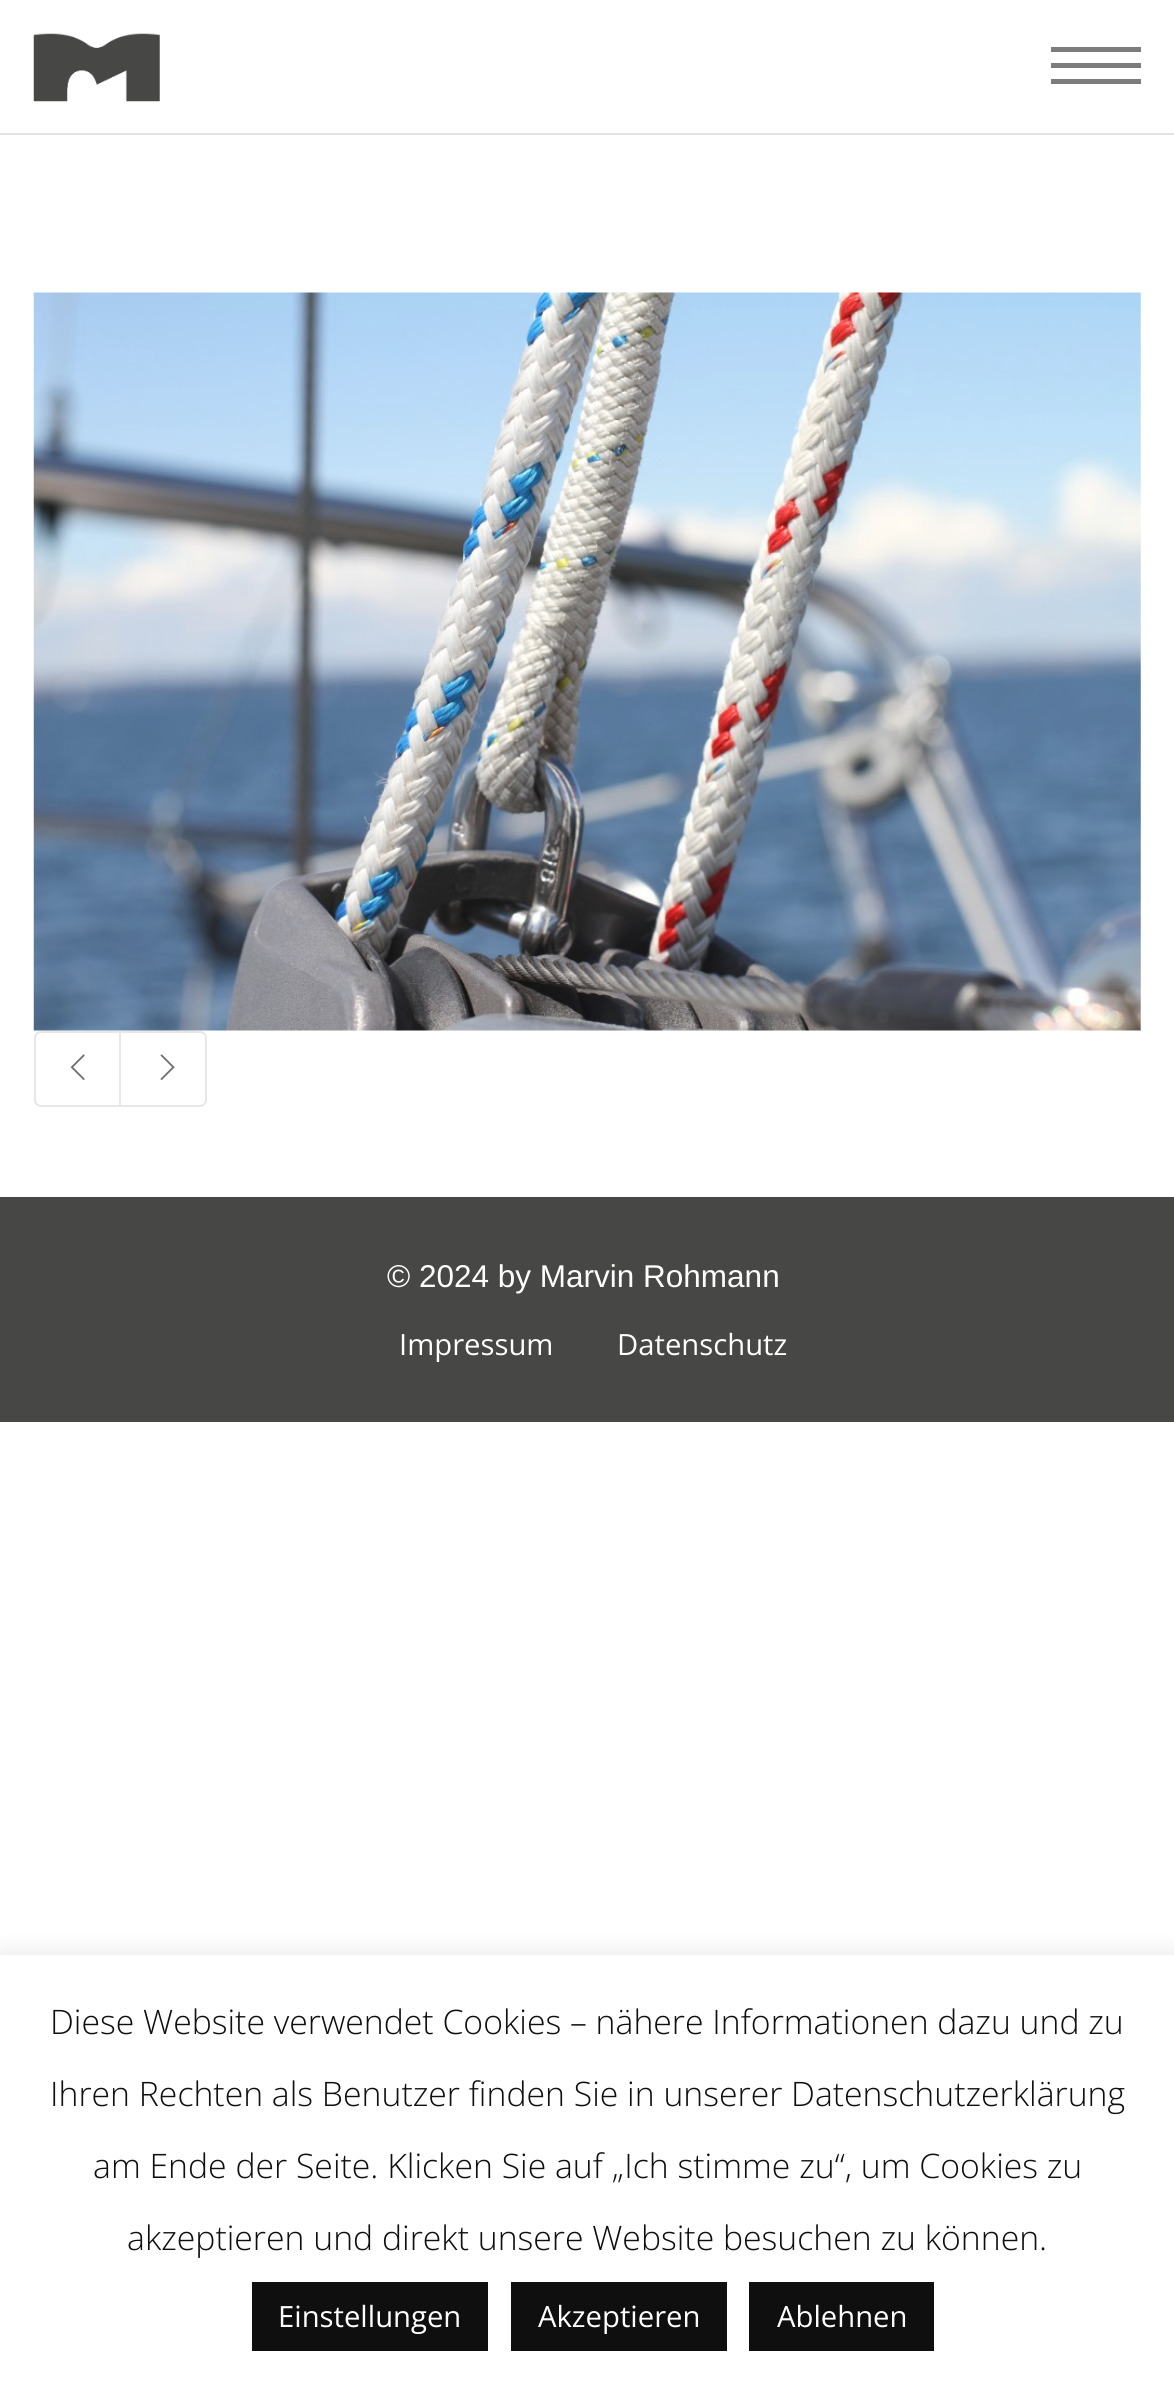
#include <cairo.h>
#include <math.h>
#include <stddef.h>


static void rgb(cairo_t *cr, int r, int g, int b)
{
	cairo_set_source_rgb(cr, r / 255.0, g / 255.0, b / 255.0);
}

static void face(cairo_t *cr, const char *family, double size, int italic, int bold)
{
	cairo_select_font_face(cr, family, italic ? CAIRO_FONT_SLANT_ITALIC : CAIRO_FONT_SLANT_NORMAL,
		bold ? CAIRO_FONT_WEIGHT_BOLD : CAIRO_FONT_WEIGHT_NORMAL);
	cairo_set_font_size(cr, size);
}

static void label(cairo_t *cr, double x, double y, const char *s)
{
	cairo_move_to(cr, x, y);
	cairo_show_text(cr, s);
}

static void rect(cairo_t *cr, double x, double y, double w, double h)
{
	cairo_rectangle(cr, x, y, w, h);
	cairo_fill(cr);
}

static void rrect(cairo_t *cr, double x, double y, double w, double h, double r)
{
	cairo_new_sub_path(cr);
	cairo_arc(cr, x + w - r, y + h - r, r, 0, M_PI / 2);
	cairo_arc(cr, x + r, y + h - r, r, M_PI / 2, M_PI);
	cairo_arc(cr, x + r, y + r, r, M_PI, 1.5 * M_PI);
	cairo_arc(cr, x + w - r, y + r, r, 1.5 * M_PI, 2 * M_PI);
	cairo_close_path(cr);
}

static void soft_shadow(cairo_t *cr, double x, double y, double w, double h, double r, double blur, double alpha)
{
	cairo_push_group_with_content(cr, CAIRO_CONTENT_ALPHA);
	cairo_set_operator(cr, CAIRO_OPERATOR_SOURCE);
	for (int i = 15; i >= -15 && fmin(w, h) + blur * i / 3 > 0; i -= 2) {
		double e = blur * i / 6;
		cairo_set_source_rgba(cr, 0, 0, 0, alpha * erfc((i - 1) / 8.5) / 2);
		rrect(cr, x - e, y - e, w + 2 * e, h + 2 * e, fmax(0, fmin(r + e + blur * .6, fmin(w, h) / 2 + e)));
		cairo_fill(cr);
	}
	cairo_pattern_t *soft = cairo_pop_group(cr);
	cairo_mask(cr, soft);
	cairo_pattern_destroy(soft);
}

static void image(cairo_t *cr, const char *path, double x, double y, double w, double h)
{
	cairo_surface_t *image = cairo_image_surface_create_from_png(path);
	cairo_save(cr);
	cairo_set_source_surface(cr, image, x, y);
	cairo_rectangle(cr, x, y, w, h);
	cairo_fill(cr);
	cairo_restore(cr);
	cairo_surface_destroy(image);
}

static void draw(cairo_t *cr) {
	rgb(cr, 255, 255, 255);
	cairo_paint(cr);
	rgb(cr, 226, 226, 226);
	rect(cr, 0, 133, 1174, 2);
	image(cr, "image0.png", 33, 33, 127, 69);
	rgb(cr, 125, 125, 125);
	rect(cr, 1051, 63, 90, 5);
	rect(cr, 1051, 47, 90, 5);
	rect(cr, 1051, 79, 90, 5);
	image(cr, "image1.png", 33, 292, 1108, 739);
	rrect(cr, 35, 1032, 171, 74, 6);
	rgb(cr, 231, 231, 231);
	cairo_stroke(cr);
	rect(cr, 119, 1033, 2, 72);
	image(cr, "image2.png", 70, 1054, 15, 26);
	image(cr, "image3.png", 160, 1054, 15, 26);
	rgb(cr, 71, 71, 69);
	rect(cr, 0, 1197, 1174, 225);
	face(cr, "Liberation Sans", 31.5, 0, 0);
	rgb(cr, 255, 255, 255);
	label(cr, 387, 1287, "© 2024 by Marvin Rohmann");
	face(cr, "Open Sans", 29.25, 0, 0);
	label(cr, 399, 1355, "Impressum");
	label(cr, 617, 1355, "Datenschutz");
	rgb(cr, 177, 176, 176);
	soft_shadow(cr, 0, 1953, 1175, 434, 0, 11, 0.3);
	rgb(cr, 255, 255, 255);
	rect(cr, 0, 1955, 1174, 433);
	face(cr, "Open Sans Light", 33.75, 0, 0);
	rgb(cr, 15, 15, 15);
	label(cr, 50, 2034, "Diese Website verwendet Cookies – nähere Informationen dazu und zu");
	label(cr, 50, 2106, "Ihren Rechten als Benutzer finden Sie in unserer Datenschutzerklärung");
	label(cr, 93, 2178, "am Ende der Seite. Klicken Sie auf „Ich stimme zu“, um Cookies zu");
	label(cr, 127, 2250, "akzeptieren und direkt unsere Website besuchen zu können.");
	rect(cr, 252, 2282, 236, 69);
	face(cr, "Open Sans", 29.25, 0, 0);
	rgb(cr, 255, 255, 255);
	label(cr, 278, 2327, "Einstellungen");
	rgb(cr, 15, 15, 15);
	rect(cr, 511, 2282, 216, 69);
	rgb(cr, 255, 255, 255);
	label(cr, 538, 2327, "Akzeptieren");
	rgb(cr, 15, 15, 15);
	rect(cr, 749, 2282, 185, 69);
	rgb(cr, 255, 255, 255);
	label(cr, 777, 2327, "Ablehnen");
}

int main(void) {
	cairo_surface_t *surface = cairo_image_surface_create(CAIRO_FORMAT_RGB24, 1174, 2388);
	cairo_t *cr = cairo_create(surface);
	cairo_font_options_t *options = cairo_font_options_create();
	cairo_font_options_set_hint_metrics(options, CAIRO_HINT_METRICS_OFF);
	cairo_font_options_set_hint_style(options, CAIRO_HINT_STYLE_NONE);
	cairo_set_font_options(cr, options);
	cairo_set_miter_limit(cr, 4);
	draw(cr);
	cairo_surface_write_to_png(surface, "render.png");
	cairo_font_options_destroy(options);
	cairo_destroy(cr);
	cairo_surface_destroy(surface);
	return 0;
}
